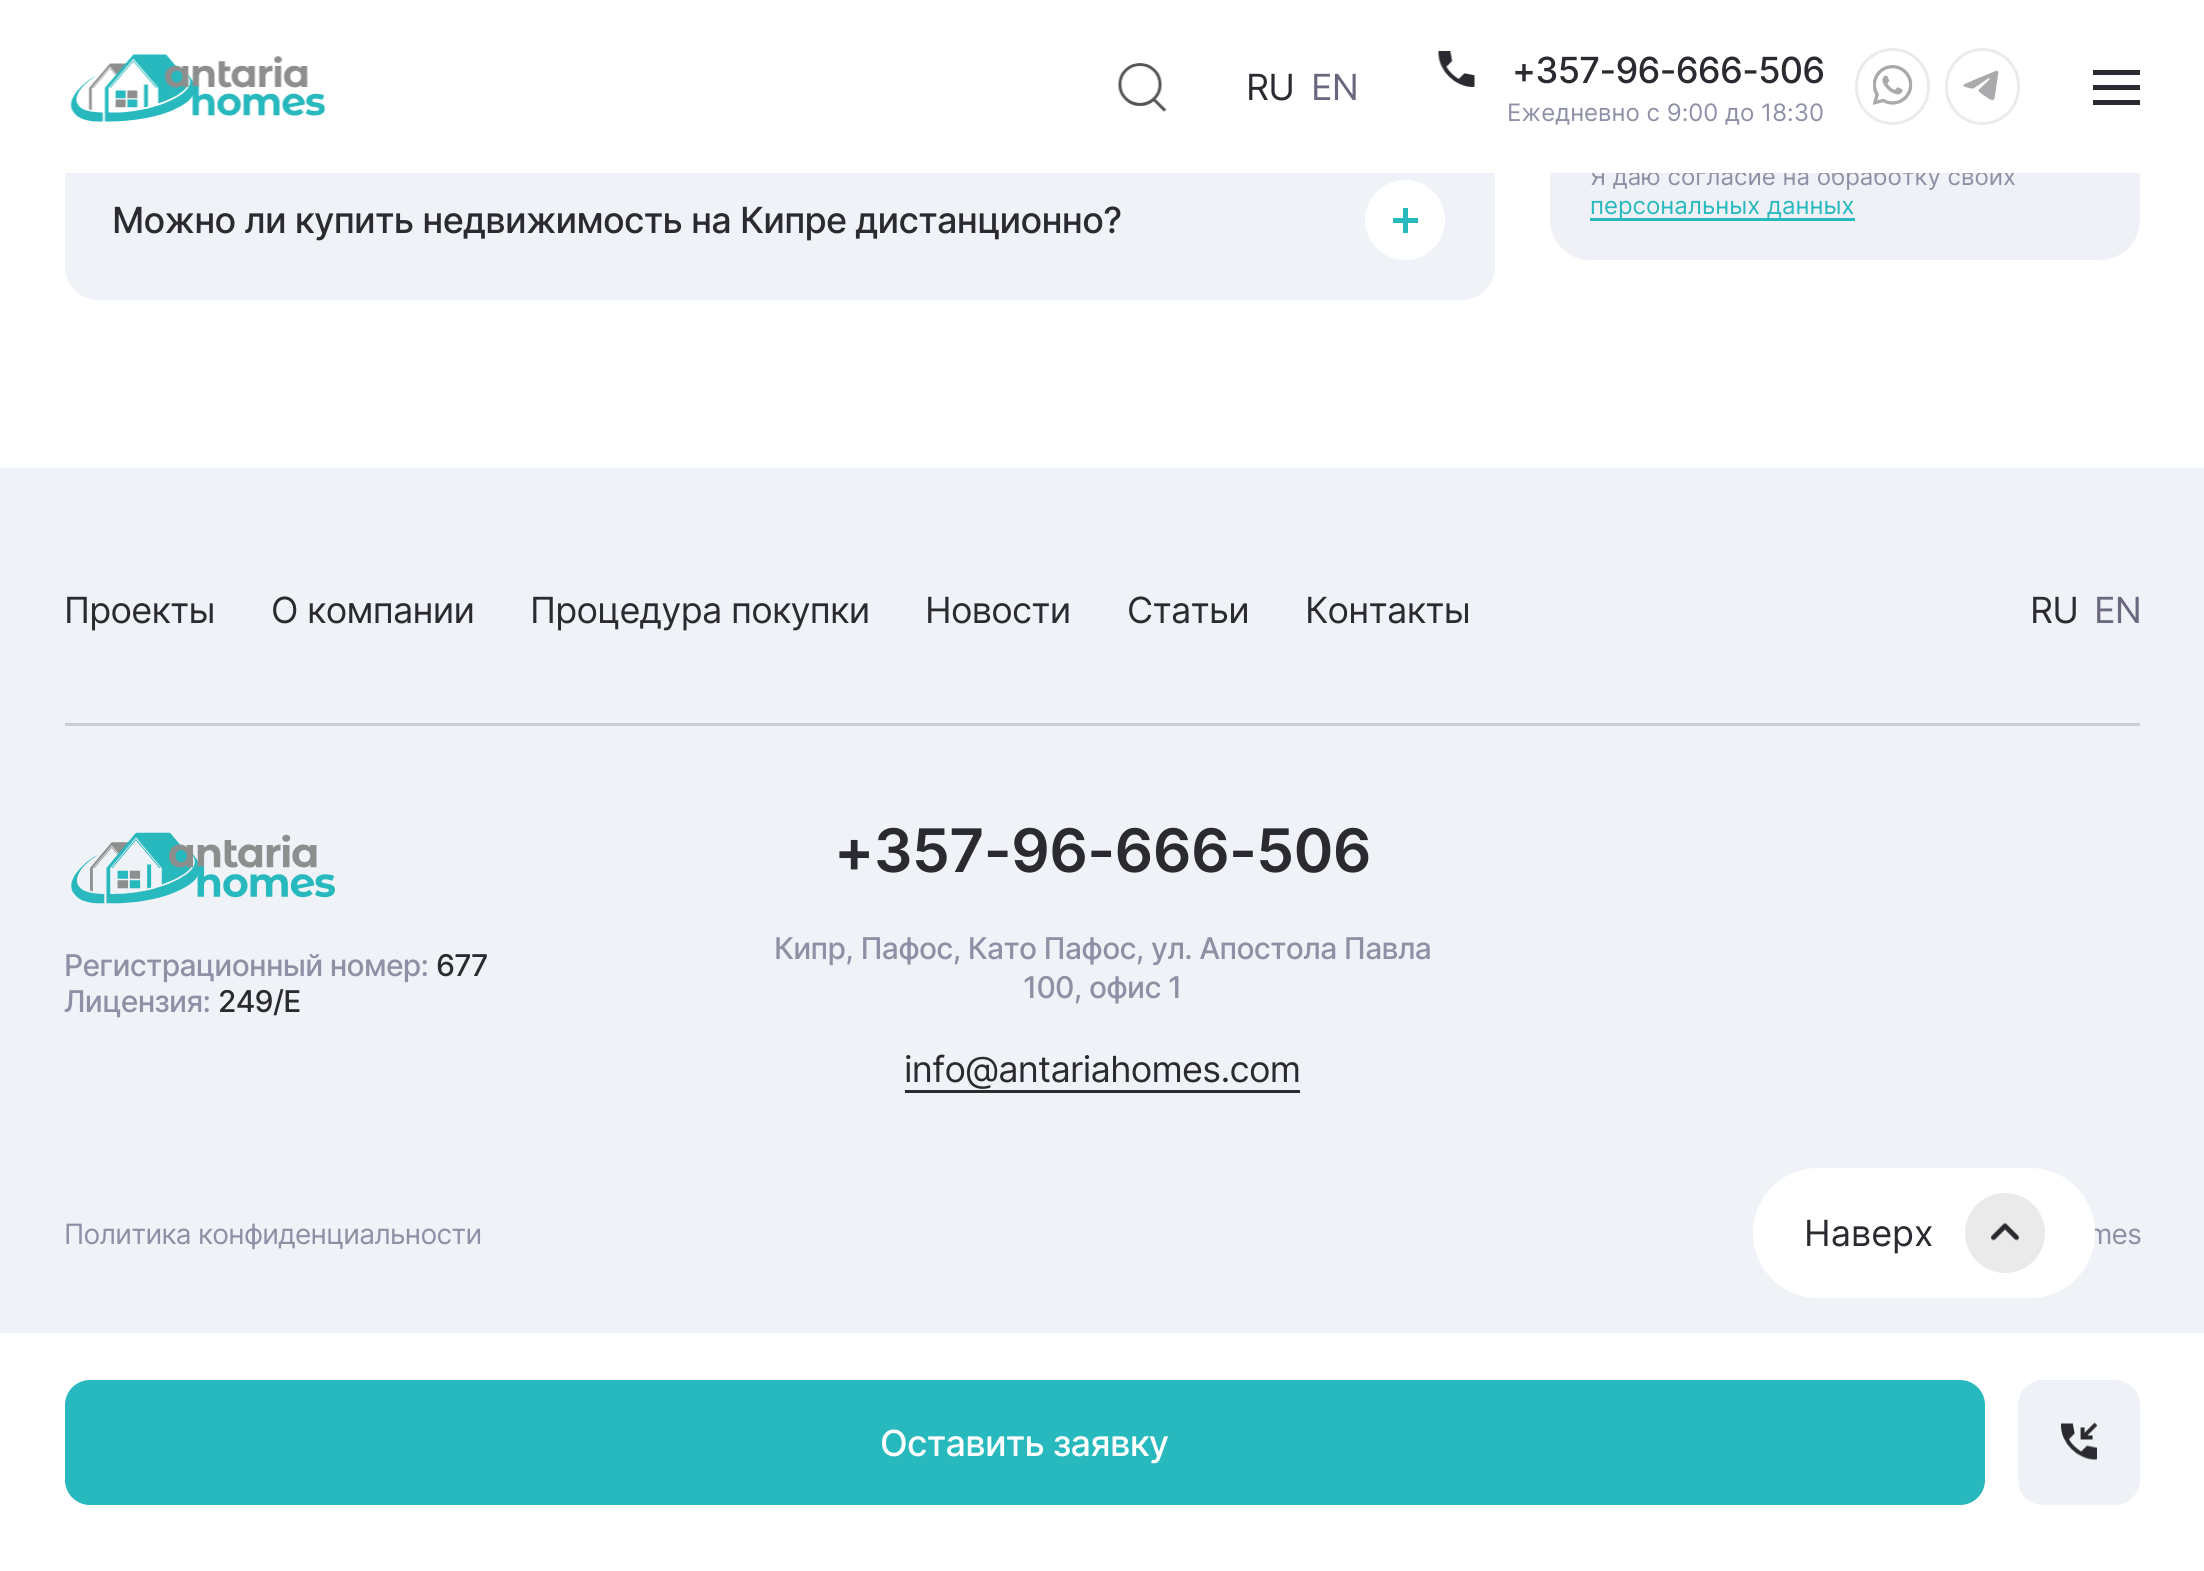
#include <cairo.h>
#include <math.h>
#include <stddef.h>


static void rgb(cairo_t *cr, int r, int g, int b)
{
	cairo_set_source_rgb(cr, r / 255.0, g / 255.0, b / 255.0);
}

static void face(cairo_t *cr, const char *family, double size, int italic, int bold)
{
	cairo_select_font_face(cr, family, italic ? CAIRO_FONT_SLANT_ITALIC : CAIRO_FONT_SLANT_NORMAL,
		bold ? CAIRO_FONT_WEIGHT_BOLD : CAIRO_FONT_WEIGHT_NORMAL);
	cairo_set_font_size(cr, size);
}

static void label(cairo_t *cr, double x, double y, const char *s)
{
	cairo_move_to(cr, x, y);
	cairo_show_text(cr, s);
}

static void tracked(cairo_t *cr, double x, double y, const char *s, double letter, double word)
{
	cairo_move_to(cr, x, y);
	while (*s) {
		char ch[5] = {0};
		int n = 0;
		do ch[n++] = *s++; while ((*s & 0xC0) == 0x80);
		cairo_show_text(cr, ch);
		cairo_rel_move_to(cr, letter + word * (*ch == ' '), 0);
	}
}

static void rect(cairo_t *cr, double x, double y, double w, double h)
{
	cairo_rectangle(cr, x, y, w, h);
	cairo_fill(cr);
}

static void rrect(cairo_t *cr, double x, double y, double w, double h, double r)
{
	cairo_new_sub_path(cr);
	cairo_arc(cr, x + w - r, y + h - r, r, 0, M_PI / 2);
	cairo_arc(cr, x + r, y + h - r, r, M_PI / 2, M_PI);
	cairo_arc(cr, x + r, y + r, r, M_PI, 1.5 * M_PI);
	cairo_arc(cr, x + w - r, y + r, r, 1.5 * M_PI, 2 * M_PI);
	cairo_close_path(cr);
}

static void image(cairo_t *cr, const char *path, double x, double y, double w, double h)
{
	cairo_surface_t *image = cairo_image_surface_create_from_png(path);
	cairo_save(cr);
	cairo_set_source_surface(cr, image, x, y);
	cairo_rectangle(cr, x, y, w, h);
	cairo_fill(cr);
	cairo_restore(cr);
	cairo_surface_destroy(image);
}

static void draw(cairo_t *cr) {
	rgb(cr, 255, 255, 255);
	cairo_paint(cr);
	rgb(cr, 239, 241, 246);
	rrect(cr, 1550, -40, 590, 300, 40);
	cairo_fill(cr);
	face(cr, "Inter", 24, 0, 0);
	rgb(cr, 142, 144, 166);
	label(cr, 1590, 185, "Я даю согласие на обработку своих");
	rgb(cr, 239, 242, 246);
	rrect(cr, 65, 140, 1430, 160, 33);
	cairo_fill(cr);
	rgb(cr, 255, 255, 255);
	rect(cr, 65, 0, 2075, 173);
	image(cr, "image0.png", 70, 54, 256, 68);
	image(cr, "image1.png", 1117, 63, 50, 49);
	face(cr, "Inter", 36, 0, 0);
	rgb(cr, 42, 42, 48);
	tracked(cr, 1246, 100, "RU", -0.72, 0);
	rgb(cr, 106, 103, 126);
	tracked(cr, 1311, 100, "EN", -0.72, 0);
	image(cr, "image2.png", 1438, 51, 37, 36);
	face(cr, "Inter Medium", 36, 0, 0);
	rgb(cr, 42, 42, 48);
	tracked(cr, 1512, 83, "+357-96-666-506", -0.72, 0);
	face(cr, "Inter", 24, 0, 0);
	rgb(cr, 142, 144, 166);
	label(cr, 1507, 121, "Ежедневно с 9:00 до 18:30");
	rrect(cr, 1856.5, 49.5, 72, 74, 36);
	rgb(cr, 235, 235, 235);
	cairo_set_line_width(cr, 3);
	cairo_stroke(cr);
	image(cr, "image3.png", 1873, 65, 40, 40);
	rrect(cr, 1946.5, 49.5, 72, 74, 36);
	cairo_stroke(cr);
	image(cr, "image4.png", 1963, 70, 36, 30);
	rgb(cr, 42, 42, 48);
	rect(cr, 2093, 85, 47, 5);
	rect(cr, 2093, 70, 47, 5);
	rect(cr, 2093, 100, 47, 5);
	rgb(cr, 40, 185, 190);
	rect(cr, 1590, 218, 265, 3);
	label(cr, 1590, 214, "персональных данных");
	face(cr, "Inter Medium", 36, 0, 0);
	rgb(cr, 42, 42, 48);
	tracked(cr, 112, 233, "Можно ли купить недвижимость на Кипре дистанционно?", -0.72, 0);
	rgb(cr, 255, 255, 255);
	cairo_new_path(cr);
	cairo_arc(cr, 1405, 220, 40, 0, 2 * M_PI);
	cairo_fill(cr);
	rgb(cr, 40, 185, 190);
	rect(cr, 1393, 218, 25, 5);
	rect(cr, 1403, 208, 5, 25);
	rrect(cr, 65, 1380, 1920, 125, 25);
	cairo_fill(cr);
	rgb(cr, 255, 255, 255);
	tracked(cr, 880, 1456, "Оставить заявку", -0.72, 0);
	rgb(cr, 238, 241, 245);
	rrect(cr, 2018, 1380, 122, 125, 25);
	cairo_fill(cr);
	image(cr, "image5.png", 2061, 1422, 37, 38);
	rgb(cr, 239, 242, 246);
	rect(cr, 0, 468, 2204, 865);
	rgb(cr, 203, 207, 213);
	rect(cr, 65, 723, 2075, 3);
	face(cr, "Inter", 36, 0, 0);
	rgb(cr, 42, 42, 48);
	tracked(cr, 64, 623, "Проекты", -0.72, 0);
	tracked(cr, 271, 623, "О компании", -0.72, 0);
	tracked(cr, 530, 623, "Процедура покупки", -0.72, 0);
	tracked(cr, 925, 623, "Новости", -0.72, 0);
	tracked(cr, 1127, 623, "Статьи", -0.72, 0);
	tracked(cr, 1305, 623, "Контакты", -0.72, 0);
	tracked(cr, 2030, 623, "RU", -0.72, 0);
	rgb(cr, 106, 103, 126);
	tracked(cr, 2094, 623, "EN", -0.72, 0);
	image(cr, "image6.png", 71, 832, 264, 72);
	face(cr, "Inter Medium", 30, 0, 0);
	rgb(cr, 142, 144, 166);
	tracked(cr, 64, 976, "Регистрационный номер:", -0.72, 0);
	rgb(cr, 42, 42, 48);
	tracked(cr, 436, 976, "677", -0.72, 0);
	rgb(cr, 142, 144, 166);
	tracked(cr, 64, 1012, "Лицензия:", -0.72, 0);
	rgb(cr, 42, 42, 48);
	tracked(cr, 218, 1012, "249/E", -0.72, 0);
	face(cr, "Inter SemiBold", 60, 0, 0);
	tracked(cr, 834, 872, "+357-96-666-506", -0.72, 0);
	face(cr, "Inter Medium", 30, 0, 0);
	rgb(cr, 142, 144, 166);
	tracked(cr, 774, 959, "Кипр, Пафос, Като Пафос, ул. Апостола Павла", -0.72, 0);
	tracked(cr, 1023, 998, "100, офис 1", -0.72, 0);
	face(cr, "Inter", 36, 0, 0);
	rgb(cr, 42, 42, 48);
	tracked(cr, 904, 1082, "info@antariahomes.com", -0.72, 0);
	rect(cr, 905, 1090, 395, 3);
	face(cr, "Inter", 28, 0, 0);
	rgb(cr, 142, 144, 166);
	tracked(cr, 2088, 1244, "mes", -0.72, 0);
	rgb(cr, 255, 255, 255);
	rrect(cr, 1753, 1168, 342, 130, 65);
	cairo_fill(cr);
	face(cr, "Inter", 36, 0, 0);
	rgb(cr, 42, 42, 48);
	label(cr, 1804, 1246, "Наверх");
	rgb(cr, 234, 234, 234);
	cairo_new_path(cr);
	cairo_arc(cr, 2005, 1233, 40, 0, 2 * M_PI);
	cairo_fill(cr);
	image(cr, "image7.png", 1991, 1223, 28, 18);
	face(cr, "Inter", 28, 0, 0);
	rgb(cr, 142, 144, 166);
	tracked(cr, 64, 1244, "Политика конфиденциальности", -0.72, 0);
}

int main(void) {
	cairo_surface_t *surface = cairo_image_surface_create(CAIRO_FORMAT_RGB24, 2204, 1571);
	cairo_t *cr = cairo_create(surface);
	cairo_font_options_t *options = cairo_font_options_create();
	cairo_font_options_set_hint_metrics(options, CAIRO_HINT_METRICS_OFF);
	cairo_font_options_set_hint_style(options, CAIRO_HINT_STYLE_NONE);
	cairo_set_font_options(cr, options);
	cairo_set_miter_limit(cr, 4);
	draw(cr);
	cairo_surface_write_to_png(surface, "render.png");
	cairo_font_options_destroy(options);
	cairo_destroy(cr);
	cairo_surface_destroy(surface);
	return 0;
}
